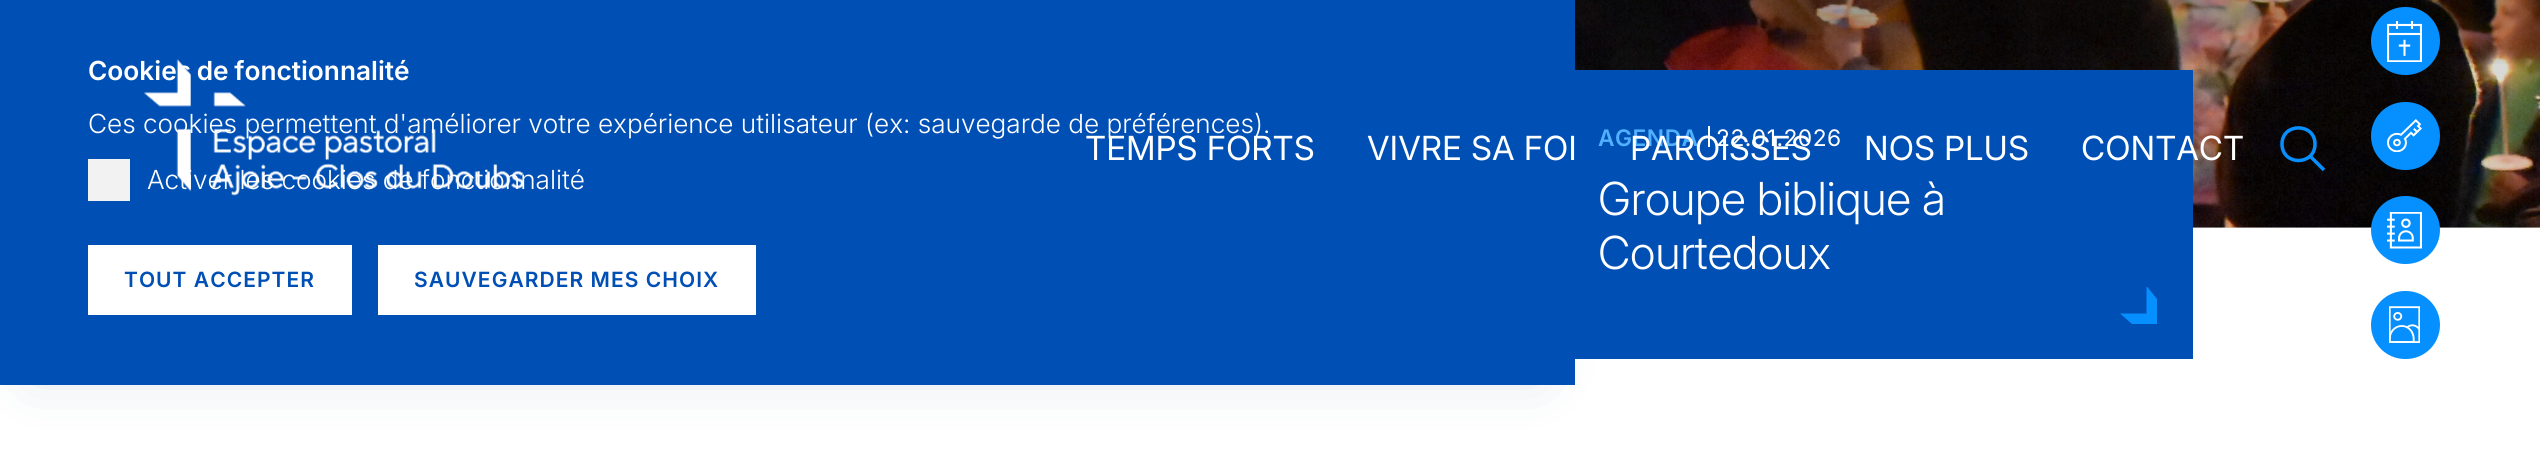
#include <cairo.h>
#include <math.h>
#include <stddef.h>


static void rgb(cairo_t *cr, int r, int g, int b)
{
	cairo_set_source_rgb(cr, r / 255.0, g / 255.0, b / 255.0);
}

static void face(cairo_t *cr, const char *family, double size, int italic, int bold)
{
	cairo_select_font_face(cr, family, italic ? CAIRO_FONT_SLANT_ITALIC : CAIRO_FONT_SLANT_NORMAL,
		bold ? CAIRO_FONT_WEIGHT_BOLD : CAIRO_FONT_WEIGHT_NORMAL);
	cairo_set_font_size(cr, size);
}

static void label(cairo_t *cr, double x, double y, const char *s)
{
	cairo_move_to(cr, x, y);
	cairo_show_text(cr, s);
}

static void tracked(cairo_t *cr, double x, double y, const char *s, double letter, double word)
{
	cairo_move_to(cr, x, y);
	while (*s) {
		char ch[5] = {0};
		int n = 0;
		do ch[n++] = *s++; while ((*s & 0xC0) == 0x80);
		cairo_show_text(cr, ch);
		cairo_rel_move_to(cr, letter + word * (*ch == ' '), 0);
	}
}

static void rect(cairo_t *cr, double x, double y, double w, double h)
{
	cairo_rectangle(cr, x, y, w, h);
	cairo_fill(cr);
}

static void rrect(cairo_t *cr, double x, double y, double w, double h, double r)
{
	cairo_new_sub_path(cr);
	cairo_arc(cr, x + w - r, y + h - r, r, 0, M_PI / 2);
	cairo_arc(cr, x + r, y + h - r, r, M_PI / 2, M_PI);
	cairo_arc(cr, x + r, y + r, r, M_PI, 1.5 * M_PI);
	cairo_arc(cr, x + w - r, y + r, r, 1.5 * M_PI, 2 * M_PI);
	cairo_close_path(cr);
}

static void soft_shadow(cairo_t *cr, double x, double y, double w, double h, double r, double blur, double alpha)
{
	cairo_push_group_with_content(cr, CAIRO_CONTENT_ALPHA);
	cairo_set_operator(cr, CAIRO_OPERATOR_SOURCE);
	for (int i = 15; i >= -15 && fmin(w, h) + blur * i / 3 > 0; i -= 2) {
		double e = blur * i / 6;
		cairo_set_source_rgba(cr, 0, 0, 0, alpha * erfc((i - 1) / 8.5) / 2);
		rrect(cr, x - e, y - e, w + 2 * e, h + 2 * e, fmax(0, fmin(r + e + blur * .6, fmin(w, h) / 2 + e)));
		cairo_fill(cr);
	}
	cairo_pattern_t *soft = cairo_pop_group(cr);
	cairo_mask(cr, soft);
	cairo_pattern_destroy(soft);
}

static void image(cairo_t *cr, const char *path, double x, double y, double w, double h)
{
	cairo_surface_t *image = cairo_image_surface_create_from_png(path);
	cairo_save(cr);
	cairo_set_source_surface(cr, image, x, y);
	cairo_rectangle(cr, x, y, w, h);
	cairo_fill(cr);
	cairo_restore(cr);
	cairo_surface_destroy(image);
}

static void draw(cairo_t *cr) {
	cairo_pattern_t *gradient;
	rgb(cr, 255, 255, 255);
	cairo_paint(cr);
	rgb(cr, 217, 217, 217);
	rect(cr, 2193, 227, 347, 1);
	image(cr, "image0.png", 1575, 0, 965, 228);
	gradient = cairo_pattern_create_linear(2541, 114, 0, 114);
	cairo_pattern_add_color_stop_rgba(gradient, 0.19, 0, 0.063, 0.153, 0);
	cairo_pattern_add_color_stop_rgba(gradient, 0.86, 0, 0.063, 0.153, 0.4);
	cairo_set_source(cr, gradient);
	cairo_pattern_destroy(gradient);
	rect(cr, 1575, 0, 348, 70);
	gradient = cairo_pattern_create_linear(1271, 228, 1271, 0);
	cairo_pattern_add_color_stop_rgba(gradient, 0.7, 0, 0, 0, 0);
	cairo_pattern_add_color_stop_rgba(gradient, 0.88, 0, 0, 0, 0.2);
	cairo_set_source(cr, gradient);
	cairo_pattern_destroy(gradient);
	rect(cr, 1575, 0, 965, 64);
	rgb(cr, 0, 79, 181);
	rect(cr, 1575, 70, 618, 289);
	rgb(cr, 0, 49, 112);
	soft_shadow(cr, 32, -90, 1508, 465, 0, 30, 0.15);
	rgb(cr, 0, 79, 181);
	rect(cr, 0, 0, 1575, 385);
	face(cr, "Inter SemiBold", 26.25, 0, 0);
	rgb(cr, 255, 255, 255);
	tracked(cr, 88, 80, "Cookies de fonctionnalité", 0, -1);
	face(cr, "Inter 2 Light", 26.25, 0, 0);
	label(cr, 88, 133, "Ces cookies permettent d'améliorer votre expérience utilisateur (ex: sauvegarde de préférences).");
	rgb(cr, 242, 242, 242);
	rect(cr, 88, 159, 42, 42);
	rgb(cr, 255, 255, 255);
	label(cr, 147, 189, "Activer les cookies de fonctionnalité");
	rect(cr, 88, 245, 264, 70);
	face(cr, "Inter SemiBold", 21, 0, 0);
	rgb(cr, 0, 79, 181);
	tracked(cr, 124, 287, "TOUT ACCEPTER", 1.05, 0);
	rgb(cr, 255, 255, 255);
	rect(cr, 378, 245, 378, 70);
	rgb(cr, 0, 79, 181);
	tracked(cr, 414, 287, "SAUVEGARDER MES CHOIX", 1.05, 0);
	face(cr, "Inter SemiBold", 22.75, 0, 0);
	rgb(cr, 81, 177, 255);
	tracked(cr, 1598, 146, "AGENDA", 0.5, 0);
	rgb(cr, 255, 255, 255);
	rect(cr, 1708, 126, 2, 21);
	face(cr, "Inter", 22.75, 0, 0);
	tracked(cr, 1716, 146, "22.01.2026", 0.5, 0);
	face(cr, "Inter Light", 45.5, 0, 0);
	tracked(cr, 1598, 215, "Groupe biblique à", -0.25, 0);
	tracked(cr, 1598, 269, "Courtedoux", -0.25, 0);
	cairo_save(cr);
	cairo_rectangle(cr, 2119, 287, 39, 37);
	cairo_clip(cr);
	rgb(cr, 6, 143, 255);
	cairo_new_path(cr);
	cairo_move_to(cr, 2157, 299);
	cairo_line_to(cr, 2146.5, 286);
	cairo_line_to(cr, 2146.5, 313.5);
	cairo_line_to(cr, 2120, 313.5);
	cairo_line_to(cr, 2132.5, 324.5);
	cairo_line_to(cr, 2157, 324.5);
	cairo_close_path(cr);
	cairo_fill(cr);
	cairo_restore(cr);
	rgb(cr, 6, 143, 255);
	rrect(cr, 2371, 7, 69, 68, 34);
	cairo_fill(cr);
	image(cr, "image1.png", 2387, 21, 35, 41);
	rrect(cr, 2371, 102, 69, 68, 34);
	cairo_fill(cr);
	image(cr, "image2.png", 2387, 119, 35, 33);
	rrect(cr, 2371, 196, 69, 68, 34);
	cairo_fill(cr);
	image(cr, "image3.png", 2387, 212, 35, 37);
	rrect(cr, 2371, 291, 69, 68, 34);
	cairo_fill(cr);
	image(cr, "image4.png", 2389, 306, 31, 37);
	image(cr, "image5.png", 144, 59, 380, 137);
	face(cr, "Inter 2", 33.25, 0, 0);
	rgb(cr, 255, 255, 255);
	label(cr, 1085, 160, "TEMPS FORTS");
	label(cr, 1367, 160, "VIVRE SA FOI");
	label(cr, 1630, 160, "PAROISSES");
	label(cr, 1864, 160, "NOS PLUS");
	label(cr, 2081, 160, "CONTACT");
	cairo_new_path(cr);
	cairo_move_to(cr, 2310, 156);
	cairo_line_to(cr, 2324, 170);
	cairo_move_to(cr, 2315, 144);
	cairo_curve_to(cr, 2315, 166, 2282, 166, 2282, 144);
	cairo_curve_to(cr, 2282, 122.5, 2315, 122.5, 2315, 144);
	cairo_close_path(cr);
	rgb(cr, 6, 143, 255);
	cairo_set_line_width(cr, 3.5);
	cairo_stroke(cr);
}

int main(void) {
	cairo_surface_t *surface = cairo_image_surface_create(CAIRO_FORMAT_RGB24, 2540, 472);
	cairo_t *cr = cairo_create(surface);
	cairo_font_options_t *options = cairo_font_options_create();
	cairo_font_options_set_hint_metrics(options, CAIRO_HINT_METRICS_OFF);
	cairo_font_options_set_hint_style(options, CAIRO_HINT_STYLE_NONE);
	cairo_set_font_options(cr, options);
	cairo_set_miter_limit(cr, 4);
	draw(cr);
	cairo_surface_write_to_png(surface, "render.png");
	cairo_font_options_destroy(options);
	cairo_destroy(cr);
	cairo_surface_destroy(surface);
	return 0;
}
